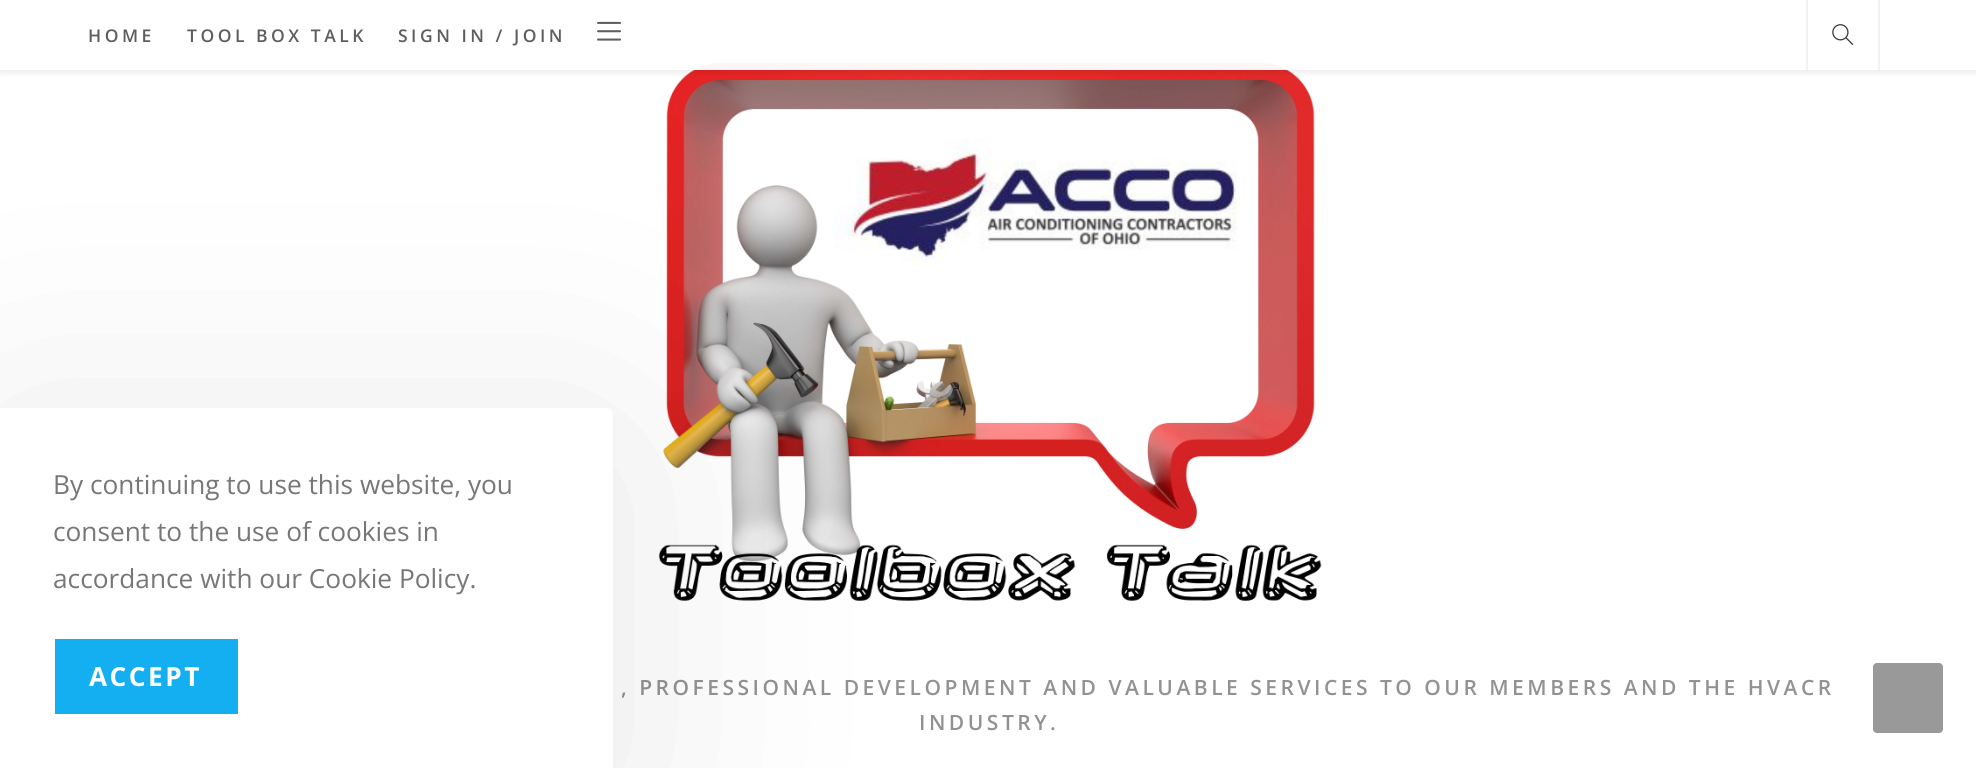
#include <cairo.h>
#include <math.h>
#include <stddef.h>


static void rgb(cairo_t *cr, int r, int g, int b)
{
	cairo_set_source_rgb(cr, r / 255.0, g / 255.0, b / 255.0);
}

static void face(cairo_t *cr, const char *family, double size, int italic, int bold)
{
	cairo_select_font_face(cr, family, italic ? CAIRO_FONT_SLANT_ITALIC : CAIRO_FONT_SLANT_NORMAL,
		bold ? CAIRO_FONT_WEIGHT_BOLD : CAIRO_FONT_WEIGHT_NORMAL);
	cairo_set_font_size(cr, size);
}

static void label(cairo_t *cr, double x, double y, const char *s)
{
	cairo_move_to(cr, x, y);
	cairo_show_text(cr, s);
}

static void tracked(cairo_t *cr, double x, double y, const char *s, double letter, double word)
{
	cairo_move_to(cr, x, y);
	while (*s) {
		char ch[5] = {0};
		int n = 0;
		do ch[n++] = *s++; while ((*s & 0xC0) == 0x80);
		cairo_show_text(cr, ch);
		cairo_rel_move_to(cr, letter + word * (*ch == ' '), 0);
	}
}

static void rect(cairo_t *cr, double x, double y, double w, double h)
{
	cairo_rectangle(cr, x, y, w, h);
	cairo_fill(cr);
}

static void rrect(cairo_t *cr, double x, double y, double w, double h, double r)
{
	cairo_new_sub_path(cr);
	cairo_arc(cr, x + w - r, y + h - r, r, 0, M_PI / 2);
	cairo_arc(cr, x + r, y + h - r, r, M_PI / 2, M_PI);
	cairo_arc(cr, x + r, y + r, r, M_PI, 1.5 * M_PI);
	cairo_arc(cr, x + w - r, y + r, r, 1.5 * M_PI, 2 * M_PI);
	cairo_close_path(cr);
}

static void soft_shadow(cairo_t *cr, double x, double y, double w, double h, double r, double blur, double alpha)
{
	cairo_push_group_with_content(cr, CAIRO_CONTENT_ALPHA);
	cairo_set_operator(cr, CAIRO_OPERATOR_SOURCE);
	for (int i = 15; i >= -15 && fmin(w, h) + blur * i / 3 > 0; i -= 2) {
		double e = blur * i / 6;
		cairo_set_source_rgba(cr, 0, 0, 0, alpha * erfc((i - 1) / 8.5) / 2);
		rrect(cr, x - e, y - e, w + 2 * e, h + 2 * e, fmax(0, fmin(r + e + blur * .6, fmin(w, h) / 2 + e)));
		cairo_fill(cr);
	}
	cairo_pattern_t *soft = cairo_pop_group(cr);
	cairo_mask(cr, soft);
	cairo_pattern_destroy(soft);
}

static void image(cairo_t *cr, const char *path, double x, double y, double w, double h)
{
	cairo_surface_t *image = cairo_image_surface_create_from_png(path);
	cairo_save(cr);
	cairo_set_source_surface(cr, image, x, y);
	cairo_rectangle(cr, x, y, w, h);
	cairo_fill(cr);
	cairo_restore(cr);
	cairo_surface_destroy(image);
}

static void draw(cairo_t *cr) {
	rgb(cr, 255, 255, 255);
	cairo_paint(cr);
	image(cr, "image2.png", 658, 62, 664, 540);
	cairo_save(cr);
	cairo_rectangle(cr, 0, 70, 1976, 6);
	cairo_clip(cr);
	rgb(cr, 0, 0, 0);
	soft_shadow(cr, 0, 2, 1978, 70, 0, 4.5, 0.1);
	cairo_restore(cr);
	cairo_set_source_rgba(cr, 1, 1, 1, 0.95);
	rect(cr, 693, 62, 596, 8);
	face(cr, "Open Sans SemiBold", 17.5, 0, 0);
	rgb(cr, 94, 94, 94);
	tracked(cr, 88, 42, "HOME", 3.5, 0);
	tracked(cr, 187, 42, "TOOL BOX TALK", 3.5, 0);
	tracked(cr, 398, 42, "SIGN IN / JOIN", 3.5, 0);
	image(cr, "image0.png", 597, 21, 24, 20);
	rgb(cr, 242, 242, 242);
	rect(cr, 1878, 0, 2, 70);
	rect(cr, 1806, 0, 2, 70);
	image(cr, "image1.png", 1832, 24, 22, 21);
	face(cr, "Open Sans SemiBold", 21, 0, 0);
	rgb(cr, 146, 146, 146);
	tracked(cr, 621, 695, ", PROFESSIONAL DEVELOPMENT AND VALUABLE SERVICES TO OUR MEMBERS AND THE HVACR", 3.5, 0);
	tracked(cr, 919, 730, "INDUSTRY.", 3.5, 0);
	rgb(cr, 0, 0, 0);
	soft_shadow(cr, 0, 443, 613, 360, 7, 131, 0.1);
	rgb(cr, 255, 255, 255);
	cairo_new_path(cr);
	cairo_move_to(cr, 0, 408);
	cairo_line_to(cr, 606, 408);
	cairo_curve_to(cr, 610, 408, 613, 411, 613, 415);
	cairo_line_to(cr, 613, 768);
	cairo_line_to(cr, 0, 768);
	cairo_close_path(cr);
	cairo_fill(cr);
	face(cr, "Open Sans", 26.25, 0, 0);
	rgb(cr, 119, 119, 119);
	label(cr, 53, 494, "By continuing to use this website, you");
	label(cr, 53, 541, "consent to the use of cookies in");
	label(cr, 53, 588, "accordance with our Cookie Policy.");
	rgb(cr, 19, 175, 240);
	rect(cr, 55, 639, 183, 75);
	face(cr, "Open Sans", 26.25, 0, 1);
	rgb(cr, 255, 255, 255);
	tracked(cr, 89, 686, "ACCEPT", 2.5, 0);
	rgb(cr, 153, 153, 153);
	rrect(cr, 1873, 663, 70, 70, 4);
	cairo_fill(cr);
}

int main(void) {
	cairo_surface_t *surface = cairo_image_surface_create(CAIRO_FORMAT_RGB24, 1976, 768);
	cairo_t *cr = cairo_create(surface);
	cairo_font_options_t *options = cairo_font_options_create();
	cairo_font_options_set_hint_metrics(options, CAIRO_HINT_METRICS_OFF);
	cairo_font_options_set_hint_style(options, CAIRO_HINT_STYLE_NONE);
	cairo_set_font_options(cr, options);
	cairo_set_miter_limit(cr, 4);
	draw(cr);
	cairo_surface_write_to_png(surface, "render.png");
	cairo_font_options_destroy(options);
	cairo_destroy(cr);
	cairo_surface_destroy(surface);
	return 0;
}
